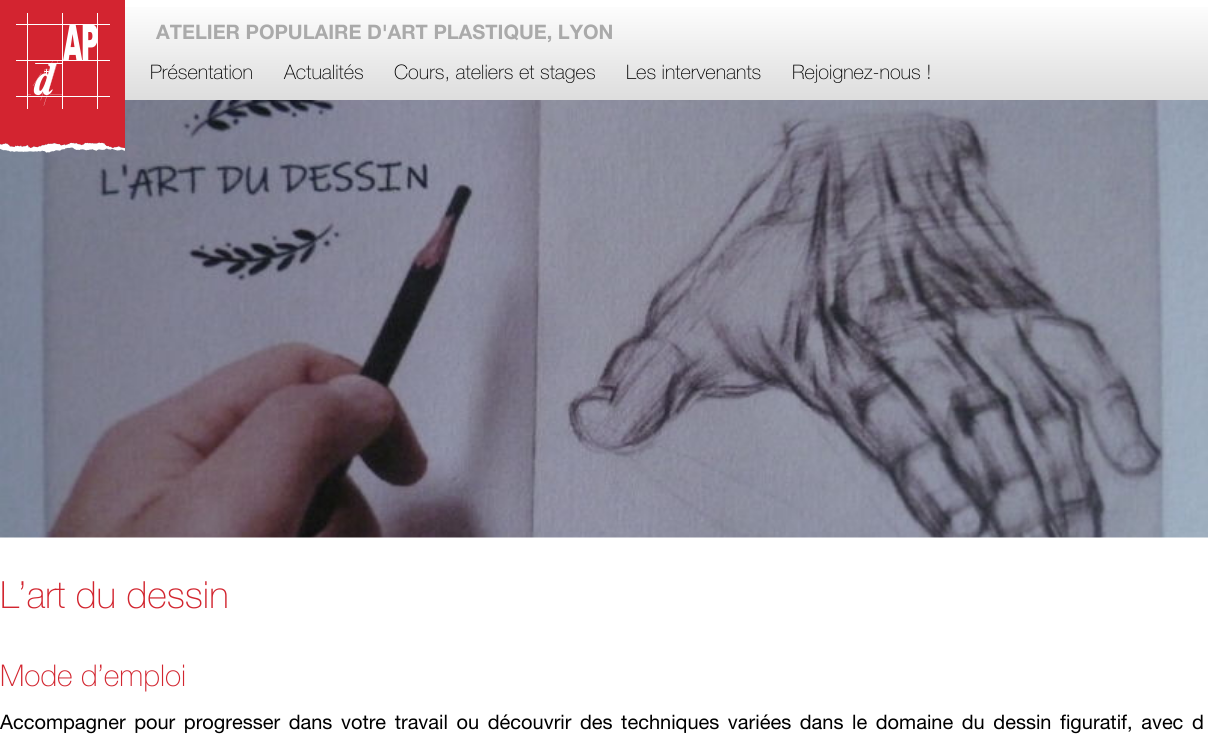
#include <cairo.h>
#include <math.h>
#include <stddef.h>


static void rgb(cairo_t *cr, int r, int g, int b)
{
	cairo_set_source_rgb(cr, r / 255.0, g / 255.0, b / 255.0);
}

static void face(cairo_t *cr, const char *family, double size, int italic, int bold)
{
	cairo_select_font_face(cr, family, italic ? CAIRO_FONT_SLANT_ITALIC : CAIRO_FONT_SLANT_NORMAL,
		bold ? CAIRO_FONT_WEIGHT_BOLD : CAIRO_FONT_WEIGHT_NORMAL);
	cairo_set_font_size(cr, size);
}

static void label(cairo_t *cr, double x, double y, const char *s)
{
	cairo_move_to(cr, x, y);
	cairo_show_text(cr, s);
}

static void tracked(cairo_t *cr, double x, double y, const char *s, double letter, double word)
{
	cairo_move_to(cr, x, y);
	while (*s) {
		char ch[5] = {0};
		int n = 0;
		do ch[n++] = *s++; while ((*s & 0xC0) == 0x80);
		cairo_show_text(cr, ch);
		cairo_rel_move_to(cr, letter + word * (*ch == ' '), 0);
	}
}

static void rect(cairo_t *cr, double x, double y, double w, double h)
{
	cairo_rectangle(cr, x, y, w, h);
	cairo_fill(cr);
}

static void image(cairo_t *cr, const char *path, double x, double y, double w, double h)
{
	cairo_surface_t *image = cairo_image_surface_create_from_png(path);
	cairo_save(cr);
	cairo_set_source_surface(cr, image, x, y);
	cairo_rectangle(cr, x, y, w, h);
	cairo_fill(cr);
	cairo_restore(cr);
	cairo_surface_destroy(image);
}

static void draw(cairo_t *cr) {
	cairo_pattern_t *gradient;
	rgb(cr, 255, 255, 255);
	cairo_paint(cr);
	gradient = cairo_pattern_create_linear(604, 0, 604, 100);
	cairo_pattern_add_color_stop_rgba(gradient, 0, 1, 1, 1, 1);
	cairo_pattern_add_color_stop_rgba(gradient, 1, 0.867, 0.867, 0.867, 1);
	cairo_set_source(cr, gradient);
	cairo_pattern_destroy(gradient);
	rect(cr, 125, 7, 1083, 93);
	image(cr, "image1.png", 0, 100, 1208, 438);
	image(cr, "image0.png", 0, 0, 125, 153);
	face(cr, "Helvetica Neue", 20, 0, 1);
	rgb(cr, 170, 170, 170);
	label(cr, 156, 39, "ATELIER POPULAIRE D'ART PLASTIQUE, LYON");
	face(cr, "Helvetica Neue Thin", 20, 0, 0);
	rgb(cr, 0, 0, 0);
	label(cr, 150, 79, "Présentation");
	label(cr, 284, 79, "Actualités");
	label(cr, 394, 79, "Cours, ateliers et stages");
	label(cr, 626, 79, "Les intervenants");
	label(cr, 792, 79, "Rejoignez-nous !");
	face(cr, "Helvetica Neue Thin", 37.5, 0, 0);
	rgb(cr, 210, 37, 47);
	label(cr, 0, 608, "L’art du dessin");
	face(cr, "Helvetica Neue Thin", 30, 0, 0);
	label(cr, 0, 686, "Mode d’emploi");
	face(cr, "Helvetica Neue", 20, 0, 0);
	rgb(cr, 0, 0, 0);
	tracked(cr, 0, 729, "Accompagner pour progresser dans votre travail ou découvrir des techniques variées dans le domaine du dessin figuratif, avec d", 0, 3);
}

int main(void) {
	cairo_surface_t *surface = cairo_image_surface_create(CAIRO_FORMAT_RGB24, 1208, 742);
	cairo_t *cr = cairo_create(surface);
	cairo_font_options_t *options = cairo_font_options_create();
	cairo_font_options_set_hint_metrics(options, CAIRO_HINT_METRICS_OFF);
	cairo_font_options_set_hint_style(options, CAIRO_HINT_STYLE_NONE);
	cairo_set_font_options(cr, options);
	cairo_set_miter_limit(cr, 4);
	draw(cr);
	cairo_surface_write_to_png(surface, "render.png");
	cairo_font_options_destroy(options);
	cairo_destroy(cr);
	cairo_surface_destroy(surface);
	return 0;
}
